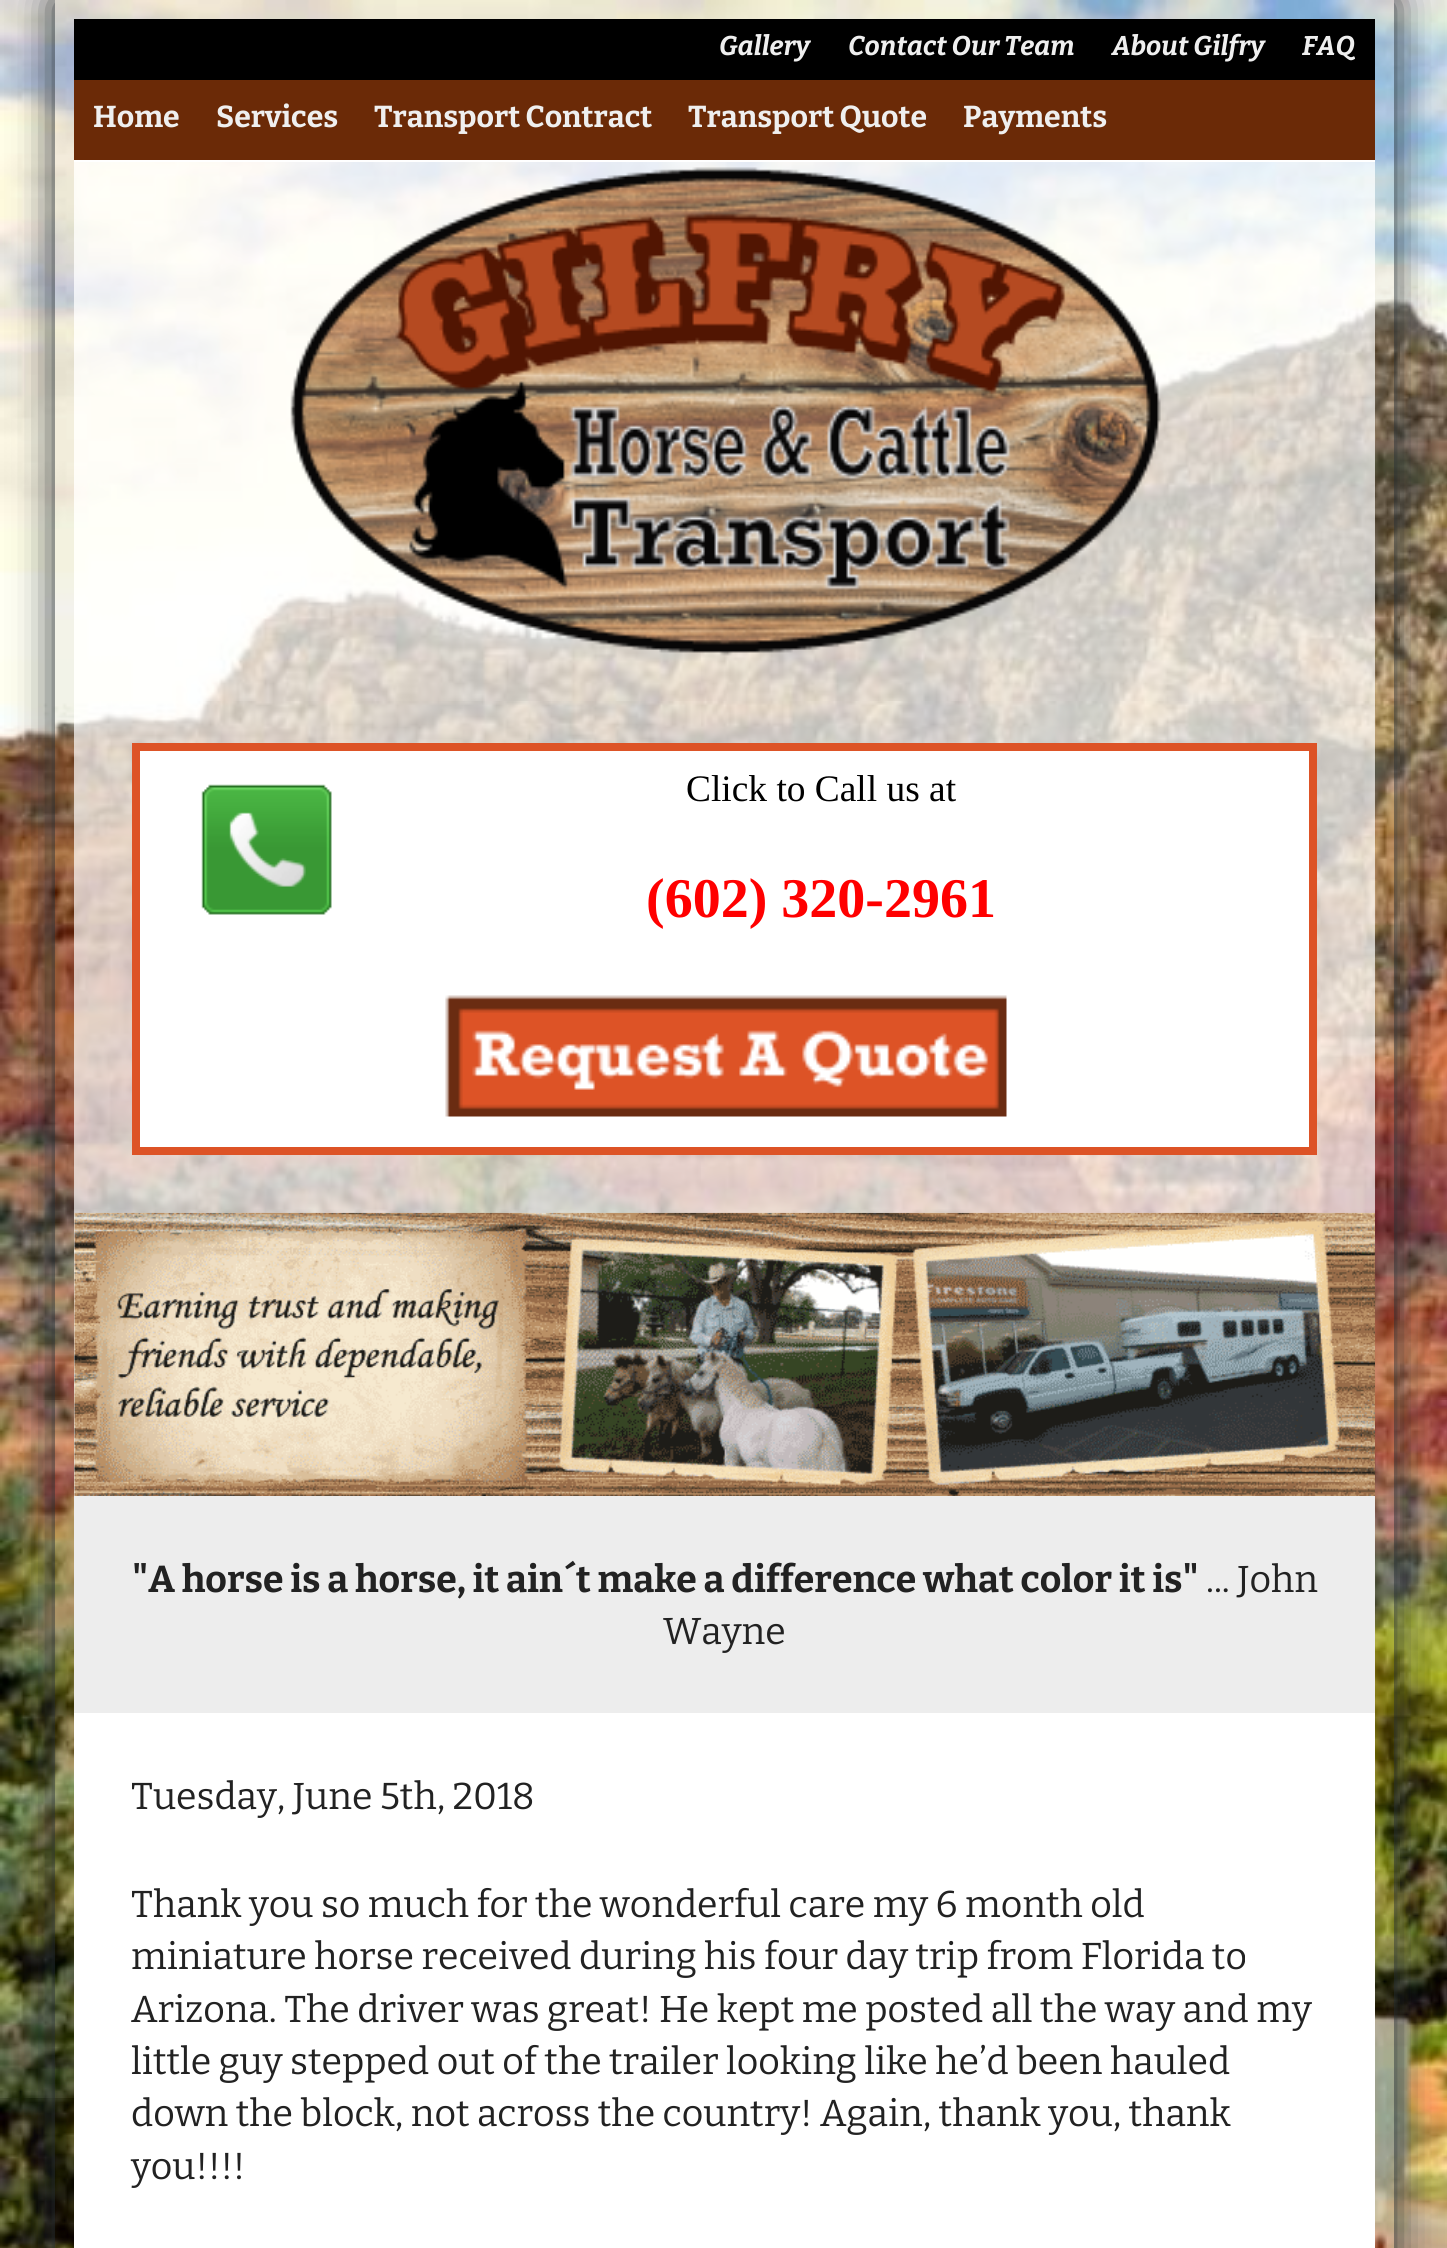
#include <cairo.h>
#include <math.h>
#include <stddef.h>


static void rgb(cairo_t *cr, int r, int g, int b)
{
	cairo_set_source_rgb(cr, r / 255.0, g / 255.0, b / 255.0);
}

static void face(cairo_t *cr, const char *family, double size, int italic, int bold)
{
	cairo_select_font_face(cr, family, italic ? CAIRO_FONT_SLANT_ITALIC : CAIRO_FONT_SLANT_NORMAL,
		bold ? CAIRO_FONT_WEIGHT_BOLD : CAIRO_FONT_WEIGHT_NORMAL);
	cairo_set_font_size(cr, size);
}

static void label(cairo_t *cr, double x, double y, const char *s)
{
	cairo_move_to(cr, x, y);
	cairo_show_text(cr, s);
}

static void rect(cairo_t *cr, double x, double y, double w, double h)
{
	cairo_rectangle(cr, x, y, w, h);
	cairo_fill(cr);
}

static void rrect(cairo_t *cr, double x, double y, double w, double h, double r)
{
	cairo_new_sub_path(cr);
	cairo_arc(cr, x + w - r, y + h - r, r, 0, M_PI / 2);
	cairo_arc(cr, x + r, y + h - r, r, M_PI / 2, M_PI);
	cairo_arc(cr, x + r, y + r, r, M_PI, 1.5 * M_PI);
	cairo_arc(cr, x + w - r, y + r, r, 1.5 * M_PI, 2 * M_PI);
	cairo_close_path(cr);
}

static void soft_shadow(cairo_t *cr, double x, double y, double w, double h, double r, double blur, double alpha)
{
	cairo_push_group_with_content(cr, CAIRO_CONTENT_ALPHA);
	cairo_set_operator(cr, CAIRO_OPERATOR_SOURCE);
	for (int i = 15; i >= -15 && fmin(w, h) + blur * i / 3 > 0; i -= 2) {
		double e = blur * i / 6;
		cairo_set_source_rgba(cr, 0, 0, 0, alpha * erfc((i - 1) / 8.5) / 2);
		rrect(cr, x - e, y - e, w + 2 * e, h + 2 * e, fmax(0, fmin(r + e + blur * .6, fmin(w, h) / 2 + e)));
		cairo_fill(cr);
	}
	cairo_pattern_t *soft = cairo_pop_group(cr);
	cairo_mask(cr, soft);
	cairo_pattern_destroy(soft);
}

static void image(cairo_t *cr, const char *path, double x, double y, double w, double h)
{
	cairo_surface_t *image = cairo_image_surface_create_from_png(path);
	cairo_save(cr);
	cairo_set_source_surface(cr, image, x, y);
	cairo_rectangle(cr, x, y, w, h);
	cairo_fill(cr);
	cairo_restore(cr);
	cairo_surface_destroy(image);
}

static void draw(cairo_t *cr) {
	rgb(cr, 255, 255, 255);
	cairo_paint(cr);
	image(cr, "image0.png", 0, 0, 1447, 2248);
	cairo_save(cr);
	cairo_set_fill_rule(cr, CAIRO_FILL_RULE_EVEN_ODD);
	cairo_new_path(cr);
	cairo_move_to(cr, 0, 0);
	cairo_line_to(cr, 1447, 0);
	cairo_line_to(cr, 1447, 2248);
	cairo_line_to(cr, 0, 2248);
	cairo_close_path(cr);
	cairo_move_to(cr, 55, 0);
	cairo_line_to(cr, 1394, 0);
	cairo_line_to(cr, 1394, 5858);
	cairo_line_to(cr, 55, 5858);
	cairo_close_path(cr);
	cairo_clip(cr);
	rgb(cr, 35, 44, 50);
	soft_shadow(cr, 55, 0, 1339, 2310, 0, 20.5, 1);
	cairo_restore(cr);
	cairo_rectangle(cr, 64.5, 9.5, 1320, 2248);
	cairo_set_source_rgba(cr, 0, 0, 0, 0.05);
	cairo_set_line_width(cr, 19);
	cairo_stroke(cr);
	rgb(cr, 0, 0, 0);
	rect(cr, 74, 19, 1301, 61);
	face(cr, "Bitter", 27, 1, 1);
	rgb(cr, 239, 239, 239);
	label(cr, 719, 55, "Gallery");
	label(cr, 848, 55, "Contact Our Team");
	label(cr, 1112, 55, "About Gilfry");
	label(cr, 1302, 55, "FAQ");
	rgb(cr, 107, 42, 7);
	rect(cr, 74, 80, 1301, 80);
	rgb(cr, 255, 255, 255);
	rect(cr, 74, 160, 1301, 2);
	face(cr, "Bitter", 30.25, 0, 1);
	rgb(cr, 239, 239, 239);
	label(cr, 93, 127, "Home");
	label(cr, 216, 127, "Services");
	label(cr, 374, 127, "Transport Contract");
	label(cr, 688, 127, "Transport Quote");
	label(cr, 963, 127, "Payments");
	cairo_set_source_rgba(cr, 1, 1, 1, 0.69);
	rect(cr, 74, 162, 1301, 1051);
	image(cr, "image1.png", 290, 167, 871, 489);
	rgb(cr, 255, 255, 255);
	cairo_rectangle(cr, 136, 747, 1177, 404);
	cairo_fill_preserve(cr);
	rgb(cr, 221, 83, 38);
	cairo_set_line_width(cr, 8);
	cairo_stroke(cr);
	image(cr, "image2.png", 201, 784, 131, 131);
	face(cr, "Liberation Serif", 37.4, 0, 0);
	rgb(cr, 0, 0, 0);
	label(cr, 686, 801, "Click to Call us at");
	face(cr, "Liberation Serif", 56, 0, 1);
	rgb(cr, 255, 0, 0);
	label(cr, 646, 917, "(602) 320-2961");
	image(cr, "image3.png", 445, 995, 562, 122);
	rgb(cr, 237, 237, 237);
	rect(cr, 74, 1213, 1, 283);
	image(cr, "image4.png", 74, 1212, 1301, 284);
	rect(cr, 74, 1496, 1301, 217);
	face(cr, "Bitter", 37.4, 0, 1);
	rgb(cr, 34, 34, 34);
	label(cr, 132, 1592, "\"A horse is a horse, it ain´t make a difference what color it is\"");
	face(cr, "Bitter", 37.4, 0, 0);
	label(cr, 1206, 1592, "... John");
	label(cr, 663, 1644, "Wayne");
	rgb(cr, 255, 255, 255);
	rect(cr, 74, 1713, 1301, 535);
	rgb(cr, 34, 34, 34);
	label(cr, 131, 1809, "Tuesday, June 5th, 2018");
	label(cr, 131, 1917, "Thank you so much for the wonderful care my 6 month old");
	label(cr, 131, 1969, "miniature horse received during his four day trip from Florida to");
	label(cr, 131, 2022, "Arizona. The driver was great!");
	label(cr, 659, 2022, "He kept me posted all the way and my");
	label(cr, 131, 2074, "little guy stepped out of the trailer looking like he’d been hauled");
	label(cr, 131, 2126, "down the block, not across the country!");
	label(cr, 820, 2126, "Again, thank you, thank");
	label(cr, 131, 2179, "you!!!!");
}

int main(void) {
	cairo_surface_t *surface = cairo_image_surface_create(CAIRO_FORMAT_RGB24, 1447, 2248);
	cairo_t *cr = cairo_create(surface);
	cairo_font_options_t *options = cairo_font_options_create();
	cairo_font_options_set_hint_metrics(options, CAIRO_HINT_METRICS_OFF);
	cairo_font_options_set_hint_style(options, CAIRO_HINT_STYLE_NONE);
	cairo_set_font_options(cr, options);
	cairo_set_miter_limit(cr, 4);
	draw(cr);
	cairo_surface_write_to_png(surface, "render.png");
	cairo_font_options_destroy(options);
	cairo_destroy(cr);
	cairo_surface_destroy(surface);
	return 0;
}
